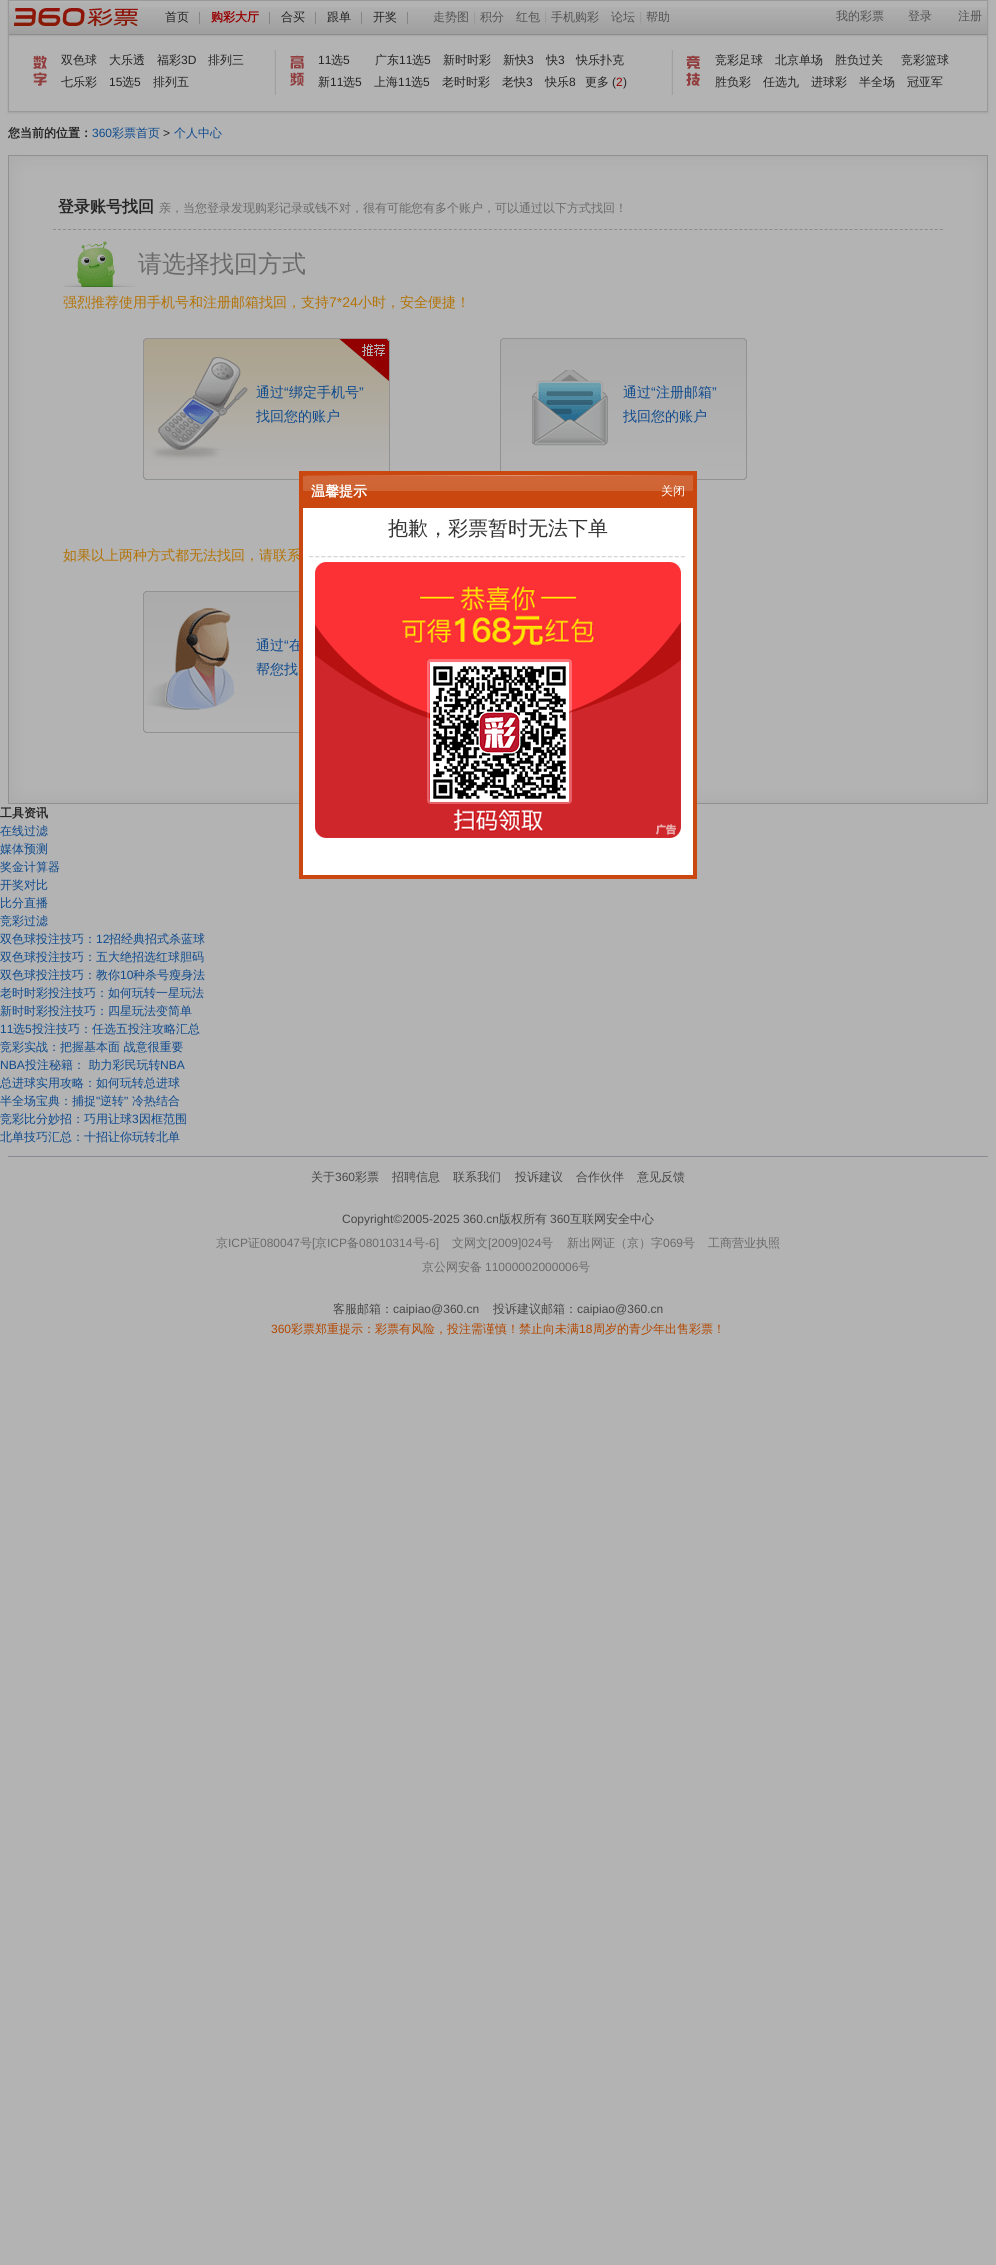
#include <cairo.h>
#include <math.h>
#include <stddef.h>


static void rgb(cairo_t *cr, int r, int g, int b)
{
	cairo_set_source_rgb(cr, r / 255.0, g / 255.0, b / 255.0);
}

static void face(cairo_t *cr, const char *family, double size, int italic, int bold)
{
	cairo_select_font_face(cr, family, italic ? CAIRO_FONT_SLANT_ITALIC : CAIRO_FONT_SLANT_NORMAL,
		bold ? CAIRO_FONT_WEIGHT_BOLD : CAIRO_FONT_WEIGHT_NORMAL);
	cairo_set_font_size(cr, size);
}

static void label(cairo_t *cr, double x, double y, const char *s)
{
	cairo_move_to(cr, x, y);
	cairo_show_text(cr, s);
}

static void rect(cairo_t *cr, double x, double y, double w, double h)
{
	cairo_rectangle(cr, x, y, w, h);
	cairo_fill(cr);
}

static void rrect(cairo_t *cr, double x, double y, double w, double h, double r)
{
	cairo_new_sub_path(cr);
	cairo_arc(cr, x + w - r, y + h - r, r, 0, M_PI / 2);
	cairo_arc(cr, x + r, y + h - r, r, M_PI / 2, M_PI);
	cairo_arc(cr, x + r, y + r, r, M_PI, 1.5 * M_PI);
	cairo_arc(cr, x + w - r, y + r, r, 1.5 * M_PI, 2 * M_PI);
	cairo_close_path(cr);
}

static void soft_shadow(cairo_t *cr, double x, double y, double w, double h, double r, double blur, double alpha)
{
	cairo_push_group_with_content(cr, CAIRO_CONTENT_ALPHA);
	cairo_set_operator(cr, CAIRO_OPERATOR_SOURCE);
	for (int i = 15; i >= -15 && fmin(w, h) + blur * i / 3 > 0; i -= 2) {
		double e = blur * i / 6;
		cairo_set_source_rgba(cr, 0, 0, 0, alpha * erfc((i - 1) / 8.5) / 2);
		rrect(cr, x - e, y - e, w + 2 * e, h + 2 * e, fmax(0, fmin(r + e + blur * .6, fmin(w, h) / 2 + e)));
		cairo_fill(cr);
	}
	cairo_pattern_t *soft = cairo_pop_group(cr);
	cairo_mask(cr, soft);
	cairo_pattern_destroy(soft);
}

static void image(cairo_t *cr, const char *path, double x, double y, double w, double h)
{
	cairo_surface_t *image = cairo_image_surface_create_from_png(path);
	cairo_save(cr);
	cairo_set_source_surface(cr, image, x, y);
	cairo_rectangle(cr, x, y, w, h);
	cairo_fill(cr);
	cairo_restore(cr);
	cairo_surface_destroy(image);
}

static void draw(cairo_t *cr) {
	rgb(cr, 179, 179, 179);
	cairo_paint(cr);
	cairo_save(cr);
	cairo_set_fill_rule(cr, CAIRO_FILL_RULE_EVEN_ODD);
	cairo_new_path(cr);
	cairo_move_to(cr, 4, 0);
	cairo_line_to(cr, 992, 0);
	cairo_line_to(cr, 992, 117);
	cairo_line_to(cr, 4, 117);
	cairo_close_path(cr);
	cairo_move_to(cr, 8, 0);
	cairo_line_to(cr, 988, 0);
	cairo_line_to(cr, 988, 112);
	cairo_line_to(cr, 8, 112);
	cairo_close_path(cr);
	cairo_clip(cr);
	rgb(cr, 0, 0, 0);
	soft_shadow(cr, 8, 1, 980, 112, 0, 1, 0.1);
	cairo_restore(cr);
	image(cr, "image0.png", 9, 7, 978, 30);
	cairo_rectangle(cr, 8.5, 0.5, 979, 111);
	rgb(cr, 153, 153, 153);
	cairo_set_line_width(cr, 1);
	cairo_stroke(cr);
	image(cr, "image1.png", 9, 2, 129, 25);
	rgb(cr, 132, 132, 132);
	rect(cr, 199, 12, 1, 12);
	face(cr, "WenQuanYi Zen Hei Medium", 12, 0, 0);
	rgb(cr, 36, 36, 36);
	label(cr, 165, 21, "首页");
	rgb(cr, 132, 132, 132);
	rect(cr, 269, 12, 1, 12);
	face(cr, "WenQuanYi Zen Hei", 12, 0, 1);
	rgb(cr, 151, 0, 0);
	label(cr, 211, 21, "购彩大厅");
	rgb(cr, 132, 132, 132);
	rect(cr, 315, 12, 1, 12);
	face(cr, "WenQuanYi Zen Hei Medium", 12, 0, 0);
	rgb(cr, 36, 36, 36);
	label(cr, 281, 21, "合买");
	rgb(cr, 132, 132, 132);
	rect(cr, 361, 12, 1, 12);
	rgb(cr, 36, 36, 36);
	label(cr, 327, 21, "跟单");
	rgb(cr, 132, 132, 132);
	rect(cr, 407, 12, 1, 12);
	rgb(cr, 36, 36, 36);
	label(cr, 373, 21, "开奖");
	rgb(cr, 83, 83, 83);
	label(cr, 433, 21, "走势图");
	face(cr, "Liberation Sans", 12, 0, 0);
	rgb(cr, 153, 153, 153);
	label(cr, 473, 21, "|");
	face(cr, "WenQuanYi Zen Hei Medium", 12, 0, 0);
	rgb(cr, 83, 83, 83);
	label(cr, 480, 21, "积分");
	label(cr, 516, 21, "红包");
	face(cr, "Liberation Sans", 12, 0, 0);
	rgb(cr, 153, 153, 153);
	label(cr, 544, 21, "|");
	face(cr, "WenQuanYi Zen Hei Medium", 12, 0, 0);
	rgb(cr, 83, 83, 83);
	label(cr, 551, 21, "手机购彩");
	label(cr, 611, 21, "论坛");
	face(cr, "Liberation Sans", 12, 0, 0);
	rgb(cr, 153, 153, 153);
	label(cr, 639, 21, "|");
	face(cr, "WenQuanYi Zen Hei Medium", 12, 0, 0);
	rgb(cr, 83, 83, 83);
	label(cr, 646, 21, "帮助");
	label(cr, 836, 20, "我的彩票");
	label(cr, 908, 20, "登录");
	label(cr, 958, 20, "注册");
	image(cr, "image2.png", 274, 50, 2, 45);
	image(cr, "image3.png", 33, 55, 14, 31);
	rgb(cr, 36, 36, 36);
	label(cr, 61, 64, "双色球");
	label(cr, 109, 64, "大乐透");
	label(cr, 157, 64, "福彩");
	face(cr, "Liberation Sans", 12, 0, 0);
	label(cr, 181, 64, "3D");
	face(cr, "WenQuanYi Zen Hei Medium", 12, 0, 0);
	label(cr, 208, 64, "排列三");
	label(cr, 61, 86, "七乐彩");
	face(cr, "Liberation Sans", 12, 0, 0);
	label(cr, 109, 86, "15");
	face(cr, "WenQuanYi Zen Hei Medium", 12, 0, 0);
	label(cr, 122, 86, "选");
	face(cr, "Liberation Sans", 12, 0, 0);
	label(cr, 134, 86, "5");
	face(cr, "WenQuanYi Zen Hei Medium", 12, 0, 0);
	label(cr, 153, 86, "排列五");
	image(cr, "image2.png", 671, 50, 2, 45);
	image(cr, "image4.png", 290, 55, 14, 31);
	face(cr, "Liberation Sans", 12, 0, 0);
	label(cr, 318, 64, "11");
	face(cr, "WenQuanYi Zen Hei Medium", 12, 0, 0);
	label(cr, 331, 64, "选");
	face(cr, "Liberation Sans", 12, 0, 0);
	label(cr, 343, 64, "5");
	face(cr, "WenQuanYi Zen Hei Medium", 12, 0, 0);
	label(cr, 375, 64, "广东");
	face(cr, "Liberation Sans", 12, 0, 0);
	label(cr, 399, 64, "11");
	face(cr, "WenQuanYi Zen Hei Medium", 12, 0, 0);
	label(cr, 412, 64, "选");
	face(cr, "Liberation Sans", 12, 0, 0);
	label(cr, 424, 64, "5");
	face(cr, "WenQuanYi Zen Hei Medium", 12, 0, 0);
	label(cr, 443, 64, "新时时彩");
	label(cr, 503, 64, "新快");
	face(cr, "Liberation Sans", 12, 0, 0);
	label(cr, 527, 64, "3");
	face(cr, "WenQuanYi Zen Hei Medium", 12, 0, 0);
	label(cr, 546, 64, "快");
	face(cr, "Liberation Sans", 12, 0, 0);
	label(cr, 558, 64, "3");
	face(cr, "WenQuanYi Zen Hei Medium", 12, 0, 0);
	label(cr, 576, 64, "快乐扑克");
	label(cr, 318, 86, "新");
	face(cr, "Liberation Sans", 12, 0, 0);
	label(cr, 330, 86, "11");
	face(cr, "WenQuanYi Zen Hei Medium", 12, 0, 0);
	label(cr, 343, 86, "选");
	face(cr, "Liberation Sans", 12, 0, 0);
	label(cr, 355, 86, "5");
	face(cr, "WenQuanYi Zen Hei Medium", 12, 0, 0);
	label(cr, 374, 86, "上海");
	face(cr, "Liberation Sans", 12, 0, 0);
	label(cr, 398, 86, "11");
	face(cr, "WenQuanYi Zen Hei Medium", 12, 0, 0);
	label(cr, 411, 86, "选");
	face(cr, "Liberation Sans", 12, 0, 0);
	label(cr, 423, 86, "5");
	face(cr, "WenQuanYi Zen Hei Medium", 12, 0, 0);
	label(cr, 442, 86, "老时时彩");
	label(cr, 502, 86, "老快");
	face(cr, "Liberation Sans", 12, 0, 0);
	label(cr, 526, 86, "3");
	face(cr, "WenQuanYi Zen Hei Medium", 12, 0, 0);
	label(cr, 545, 86, "快乐");
	face(cr, "Liberation Sans", 12, 0, 0);
	label(cr, 569, 86, "8");
	face(cr, "WenQuanYi Zen Hei Medium", 12, 0, 0);
	label(cr, 585, 86, "更多");
	face(cr, "Liberation Sans", 12, 0, 0);
	label(cr, 612, 86, "(");
	rgb(cr, 151, 0, 0);
	label(cr, 616, 86, "2");
	rgb(cr, 36, 36, 36);
	label(cr, 623, 86, ")");
	image(cr, "image5.png", 686, 55, 14, 31);
	face(cr, "WenQuanYi Zen Hei Medium", 12, 0, 0);
	label(cr, 715, 64, "竞彩足球");
	label(cr, 775, 64, "北京单场");
	label(cr, 835, 64, "胜负过关");
	label(cr, 901, 64, "竞彩篮球");
	label(cr, 715, 86, "胜负彩");
	label(cr, 763, 86, "任选九");
	label(cr, 811, 86, "进球彩");
	label(cr, 859, 86, "半全场");
	label(cr, 907, 86, "冠亚军");
	face(cr, "WenQuanYi Zen Hei", 12, 0, 1);
	label(cr, 8, 137, "您当前的位置：");
	face(cr, "Liberation Sans", 12, 0, 0);
	rgb(cr, 14, 74, 141);
	label(cr, 92, 137, "360");
	face(cr, "WenQuanYi Zen Hei Medium", 12, 0, 0);
	label(cr, 112, 137, "彩票首页");
	face(cr, "Liberation Sans", 12, 0, 0);
	rgb(cr, 36, 36, 36);
	label(cr, 163, 137, ">");
	face(cr, "WenQuanYi Zen Hei Medium", 12, 0, 0);
	rgb(cr, 14, 74, 141);
	label(cr, 174, 137, "个人中心");
	image(cr, "image6.png", 8, 155, 980, 30);
	image(cr, "image7.png", 8, 185, 980, 589);
	cairo_new_path(cr);
	cairo_move_to(cr, 53, 229.5);
	cairo_line_to(cr, 943, 229.5);
	rgb(cr, 140, 140, 140);
	cairo_set_dash(cr, (double[]){3, 2.01}, 2, 0);
	cairo_stroke(cr);
	face(cr, "WenQuanYi Zen Hei", 16, 0, 1);
	rgb(cr, 36, 36, 36);
	label(cr, 58, 212, "登录账号找回");
	face(cr, "WenQuanYi Zen Hei Medium", 12, 0, 0);
	rgb(cr, 106, 106, 106);
	label(cr, 159, 212, "亲，当您登录发现购彩记录或钱不对，很有可能您有多个账户，可以通过以下方式找回！");
	image(cr, "image8.png", 64, 241, 72, 46);
	face(cr, "WenQuanYi Zen Hei Medium", 24, 0, 0);
	label(cr, 138, 272, "请选择找回方式");
	face(cr, "WenQuanYi Zen Hei Medium", 14, 0, 0);
	rgb(cr, 179, 115, 6);
	label(cr, 63, 307, "强烈推荐使用手机号和注册邮箱找回，支持");
	face(cr, "Liberation Sans", 14, 0, 0);
	label(cr, 329, 307, "7*24");
	face(cr, "WenQuanYi Zen Hei Medium", 14, 0, 0);
	label(cr, 358, 307, "小时，安全便捷！");
	image(cr, "image9.png", 143, 338, 247, 142);
	rgb(cr, 14, 74, 141);
	label(cr, 256, 397, "通过");
	face(cr, "Liberation Sans", 14, 0, 0);
	label(cr, 284, 397, "“");
	face(cr, "WenQuanYi Zen Hei Medium", 14, 0, 0);
	label(cr, 289, 397, "绑定手机号");
	face(cr, "Liberation Sans", 14, 0, 0);
	label(cr, 359, 397, "”");
	face(cr, "WenQuanYi Zen Hei Medium", 14, 0, 0);
	label(cr, 256, 421, "找回您的账户");
	image(cr, "image10.png", 500, 338, 247, 142);
	label(cr, 623, 397, "通过");
	face(cr, "Liberation Sans", 14, 0, 0);
	label(cr, 651, 397, "“");
	face(cr, "WenQuanYi Zen Hei Medium", 14, 0, 0);
	label(cr, 656, 397, "注册邮箱");
	face(cr, "Liberation Sans", 14, 0, 0);
	label(cr, 712, 397, "”");
	face(cr, "WenQuanYi Zen Hei Medium", 14, 0, 0);
	label(cr, 623, 421, "找回您的账户");
	rgb(cr, 179, 115, 6);
	label(cr, 63, 560, "如果以上两种方式都无法找回，请联系");
	image(cr, "image11.png", 143, 591, 156, 142);
	rgb(cr, 14, 74, 141);
	label(cr, 256, 650, "通过");
	face(cr, "Liberation Sans", 14, 0, 0);
	label(cr, 284, 650, "“");
	face(cr, "WenQuanYi Zen Hei Medium", 14, 0, 0);
	label(cr, 289, 650, "在");
	label(cr, 256, 674, "帮您找");
	image(cr, "image12.png", 8, 774, 980, 30);
	rgb(cr, 255, 255, 255);
	rect(cr, 303, 508, 390, 367);
	cairo_rectangle(cr, 301, 473, 394, 404);
	rgb(cr, 202, 71, 15);
	cairo_set_line_width(cr, 4);
	cairo_set_dash(cr, NULL, 0, 0);
	cairo_stroke(cr);
	rect(cr, 303, 491, 390, 17);
	image(cr, "image13.png", 303, 475, 390, 16);
	face(cr, "WenQuanYi Zen Hei", 14, 0, 1);
	rgb(cr, 255, 255, 255);
	label(cr, 311, 496, "温馨提示");
	face(cr, "WenQuanYi Zen Hei Medium", 12, 0, 0);
	label(cr, 661, 495, "关闭");
	face(cr, "WenQuanYi Zen Hei Medium", 20, 0, 0);
	rgb(cr, 51, 51, 51);
	label(cr, 388, 535, "抱歉，彩票暂时无法下单");
	image(cr, "image14.png", 309, 556, 376, 282);
	face(cr, "WenQuanYi Zen Hei", 12, 0, 1);
	rgb(cr, 36, 36, 36);
	label(cr, 0, 817, "工具资讯");
	face(cr, "WenQuanYi Zen Hei Medium", 12, 0, 0);
	rgb(cr, 14, 74, 141);
	label(cr, 0, 835, "在线过滤");
	label(cr, 0, 853, "媒体预测");
	label(cr, 0, 871, "奖金计算器");
	label(cr, 0, 889, "开奖对比");
	label(cr, 0, 907, "比分直播");
	label(cr, 0, 925, "竞彩过滤");
	label(cr, 0, 943, "双色球投注技巧：");
	face(cr, "Liberation Sans", 12, 0, 0);
	label(cr, 96, 943, "12");
	face(cr, "WenQuanYi Zen Hei Medium", 12, 0, 0);
	label(cr, 109, 943, "招经典招式杀蓝球");
	label(cr, 0, 961, "双色球投注技巧：五大绝招选红球胆码");
	label(cr, 0, 979, "双色球投注技巧：教你");
	face(cr, "Liberation Sans", 12, 0, 0);
	label(cr, 120, 979, "10");
	face(cr, "WenQuanYi Zen Hei Medium", 12, 0, 0);
	label(cr, 133, 979, "种杀号瘦身法");
	label(cr, 0, 997, "老时时彩投注技巧：如何玩转一星玩法");
	label(cr, 0, 1015, "新时时彩投注技巧：四星玩法变简单");
	face(cr, "Liberation Sans", 12, 0, 0);
	label(cr, 0, 1033, "11");
	face(cr, "WenQuanYi Zen Hei Medium", 12, 0, 0);
	label(cr, 13, 1033, "选");
	face(cr, "Liberation Sans", 12, 0, 0);
	label(cr, 25, 1033, "5");
	face(cr, "WenQuanYi Zen Hei Medium", 12, 0, 0);
	label(cr, 32, 1033, "投注技巧：任选五投注攻略汇总");
	label(cr, 0, 1051, "竞彩实战：把握基本面 战意很重要");
	face(cr, "Liberation Sans", 12, 0, 0);
	label(cr, 0, 1069, "NBA");
	face(cr, "WenQuanYi Zen Hei Medium", 12, 0, 0);
	label(cr, 25, 1069, "投注秘籍： 助力彩民玩转");
	face(cr, "Liberation Sans", 12, 0, 0);
	label(cr, 160, 1069, "NBA");
	face(cr, "WenQuanYi Zen Hei Medium", 12, 0, 0);
	label(cr, 0, 1087, "总进球实用攻略：如何玩转总进球");
	label(cr, 0, 1105, "半全场宝典：捕捉");
	face(cr, "Liberation Sans", 12, 0, 0);
	label(cr, 96, 1105, "\"");
	face(cr, "WenQuanYi Zen Hei Medium", 12, 0, 0);
	label(cr, 100, 1105, "逆转");
	face(cr, "Liberation Sans", 12, 0, 0);
	label(cr, 124, 1105, "\"");
	face(cr, "WenQuanYi Zen Hei Medium", 12, 0, 0);
	label(cr, 132, 1105, "冷热结合");
	label(cr, 0, 1123, "竞彩比分妙招：巧用让球");
	face(cr, "Liberation Sans", 12, 0, 0);
	label(cr, 132, 1123, "3");
	face(cr, "WenQuanYi Zen Hei Medium", 12, 0, 0);
	label(cr, 139, 1123, "因框范围");
	label(cr, 0, 1141, "北单技巧汇总：十招让你玩转北单");
	rgb(cr, 136, 137, 145);
	rect(cr, 8, 1156, 980, 1);
	rgb(cr, 71, 71, 71);
	label(cr, 311, 1181, "关于");
	face(cr, "Liberation Sans", 12, 0, 0);
	label(cr, 335, 1181, "360");
	face(cr, "WenQuanYi Zen Hei Medium", 12, 0, 0);
	label(cr, 355, 1181, "彩票");
	label(cr, 392, 1181, "招聘信息");
	label(cr, 453, 1181, "联系我们");
	label(cr, 515, 1181, "投诉建议");
	label(cr, 576, 1181, "合作伙伴");
	label(cr, 637, 1181, "意见反馈");
	face(cr, "Liberation Sans", 12, 0, 0);
	label(cr, 342, 1223, "Copyright©2005-2025 360.cn");
	face(cr, "WenQuanYi Zen Hei Medium", 12, 0, 0);
	label(cr, 499, 1223, "版权所有");
	face(cr, "Liberation Sans", 12, 0, 0);
	label(cr, 550, 1223, "360");
	face(cr, "WenQuanYi Zen Hei Medium", 12, 0, 0);
	label(cr, 570, 1223, "互联网安全中心");
	rgb(cr, 106, 106, 106);
	label(cr, 216, 1247, "京");
	face(cr, "Liberation Sans", 12, 0, 0);
	label(cr, 228, 1247, "ICP");
	face(cr, "WenQuanYi Zen Hei Medium", 12, 0, 0);
	label(cr, 248, 1247, "证");
	face(cr, "Liberation Sans", 12, 0, 0);
	label(cr, 260, 1247, "080047");
	face(cr, "WenQuanYi Zen Hei Medium", 12, 0, 0);
	label(cr, 300, 1247, "号");
	face(cr, "Liberation Sans", 12, 0, 0);
	label(cr, 312, 1247, "[");
	face(cr, "WenQuanYi Zen Hei Medium", 12, 0, 0);
	label(cr, 315, 1247, "京");
	face(cr, "Liberation Sans", 12, 0, 0);
	label(cr, 327, 1247, "ICP");
	face(cr, "WenQuanYi Zen Hei Medium", 12, 0, 0);
	label(cr, 347, 1247, "备");
	face(cr, "Liberation Sans", 12, 0, 0);
	label(cr, 359, 1247, "08010314");
	face(cr, "WenQuanYi Zen Hei Medium", 12, 0, 0);
	label(cr, 413, 1247, "号");
	face(cr, "Liberation Sans", 12, 0, 0);
	label(cr, 425, 1247, "-6]");
	face(cr, "WenQuanYi Zen Hei Medium", 12, 0, 0);
	label(cr, 452, 1247, "文网文");
	face(cr, "Liberation Sans", 12, 0, 0);
	label(cr, 488, 1247, "[2009]024");
	face(cr, "WenQuanYi Zen Hei Medium", 12, 0, 0);
	label(cr, 541, 1247, "号");
	label(cr, 567, 1247, "新出网证（京）字");
	face(cr, "Liberation Sans", 12, 0, 0);
	label(cr, 663, 1247, "069");
	face(cr, "WenQuanYi Zen Hei Medium", 12, 0, 0);
	label(cr, 683, 1247, "号");
	label(cr, 708, 1247, "工商营业执照");
	label(cr, 422, 1271, "京公网安备");
	face(cr, "Liberation Sans", 12, 0, 0);
	label(cr, 485, 1271, "11000002000006");
	face(cr, "WenQuanYi Zen Hei Medium", 12, 0, 0);
	label(cr, 578, 1271, "号");
	rgb(cr, 71, 71, 71);
	label(cr, 333, 1313, "客服邮箱：");
	face(cr, "Liberation Sans", 12, 0, 0);
	label(cr, 393, 1313, "caipiao@360.cn");
	face(cr, "WenQuanYi Zen Hei Medium", 12, 0, 0);
	label(cr, 493, 1313, "投诉建议邮箱：");
	face(cr, "Liberation Sans", 12, 0, 0);
	label(cr, 577, 1313, "caipiao@360.cn");
	rgb(cr, 179, 71, 0);
	label(cr, 271, 1333, "360");
	face(cr, "WenQuanYi Zen Hei Medium", 12, 0, 0);
	label(cr, 291, 1333, "彩票郑重提示：彩票有风险，投注需谨慎！禁止向未满");
	face(cr, "Liberation Sans", 12, 0, 0);
	label(cr, 579, 1333, "18");
	face(cr, "WenQuanYi Zen Hei Medium", 12, 0, 0);
	label(cr, 593, 1333, "周岁的青少年出售彩票！");
}

int main(void) {
	cairo_surface_t *surface = cairo_image_surface_create(CAIRO_FORMAT_RGB24, 996, 2265);
	cairo_t *cr = cairo_create(surface);
	cairo_font_options_t *options = cairo_font_options_create();
	cairo_font_options_set_hint_metrics(options, CAIRO_HINT_METRICS_OFF);
	cairo_font_options_set_hint_style(options, CAIRO_HINT_STYLE_NONE);
	cairo_set_font_options(cr, options);
	cairo_set_miter_limit(cr, 4);
	draw(cr);
	cairo_surface_write_to_png(surface, "render.png");
	cairo_font_options_destroy(options);
	cairo_destroy(cr);
	cairo_surface_destroy(surface);
	return 0;
}
